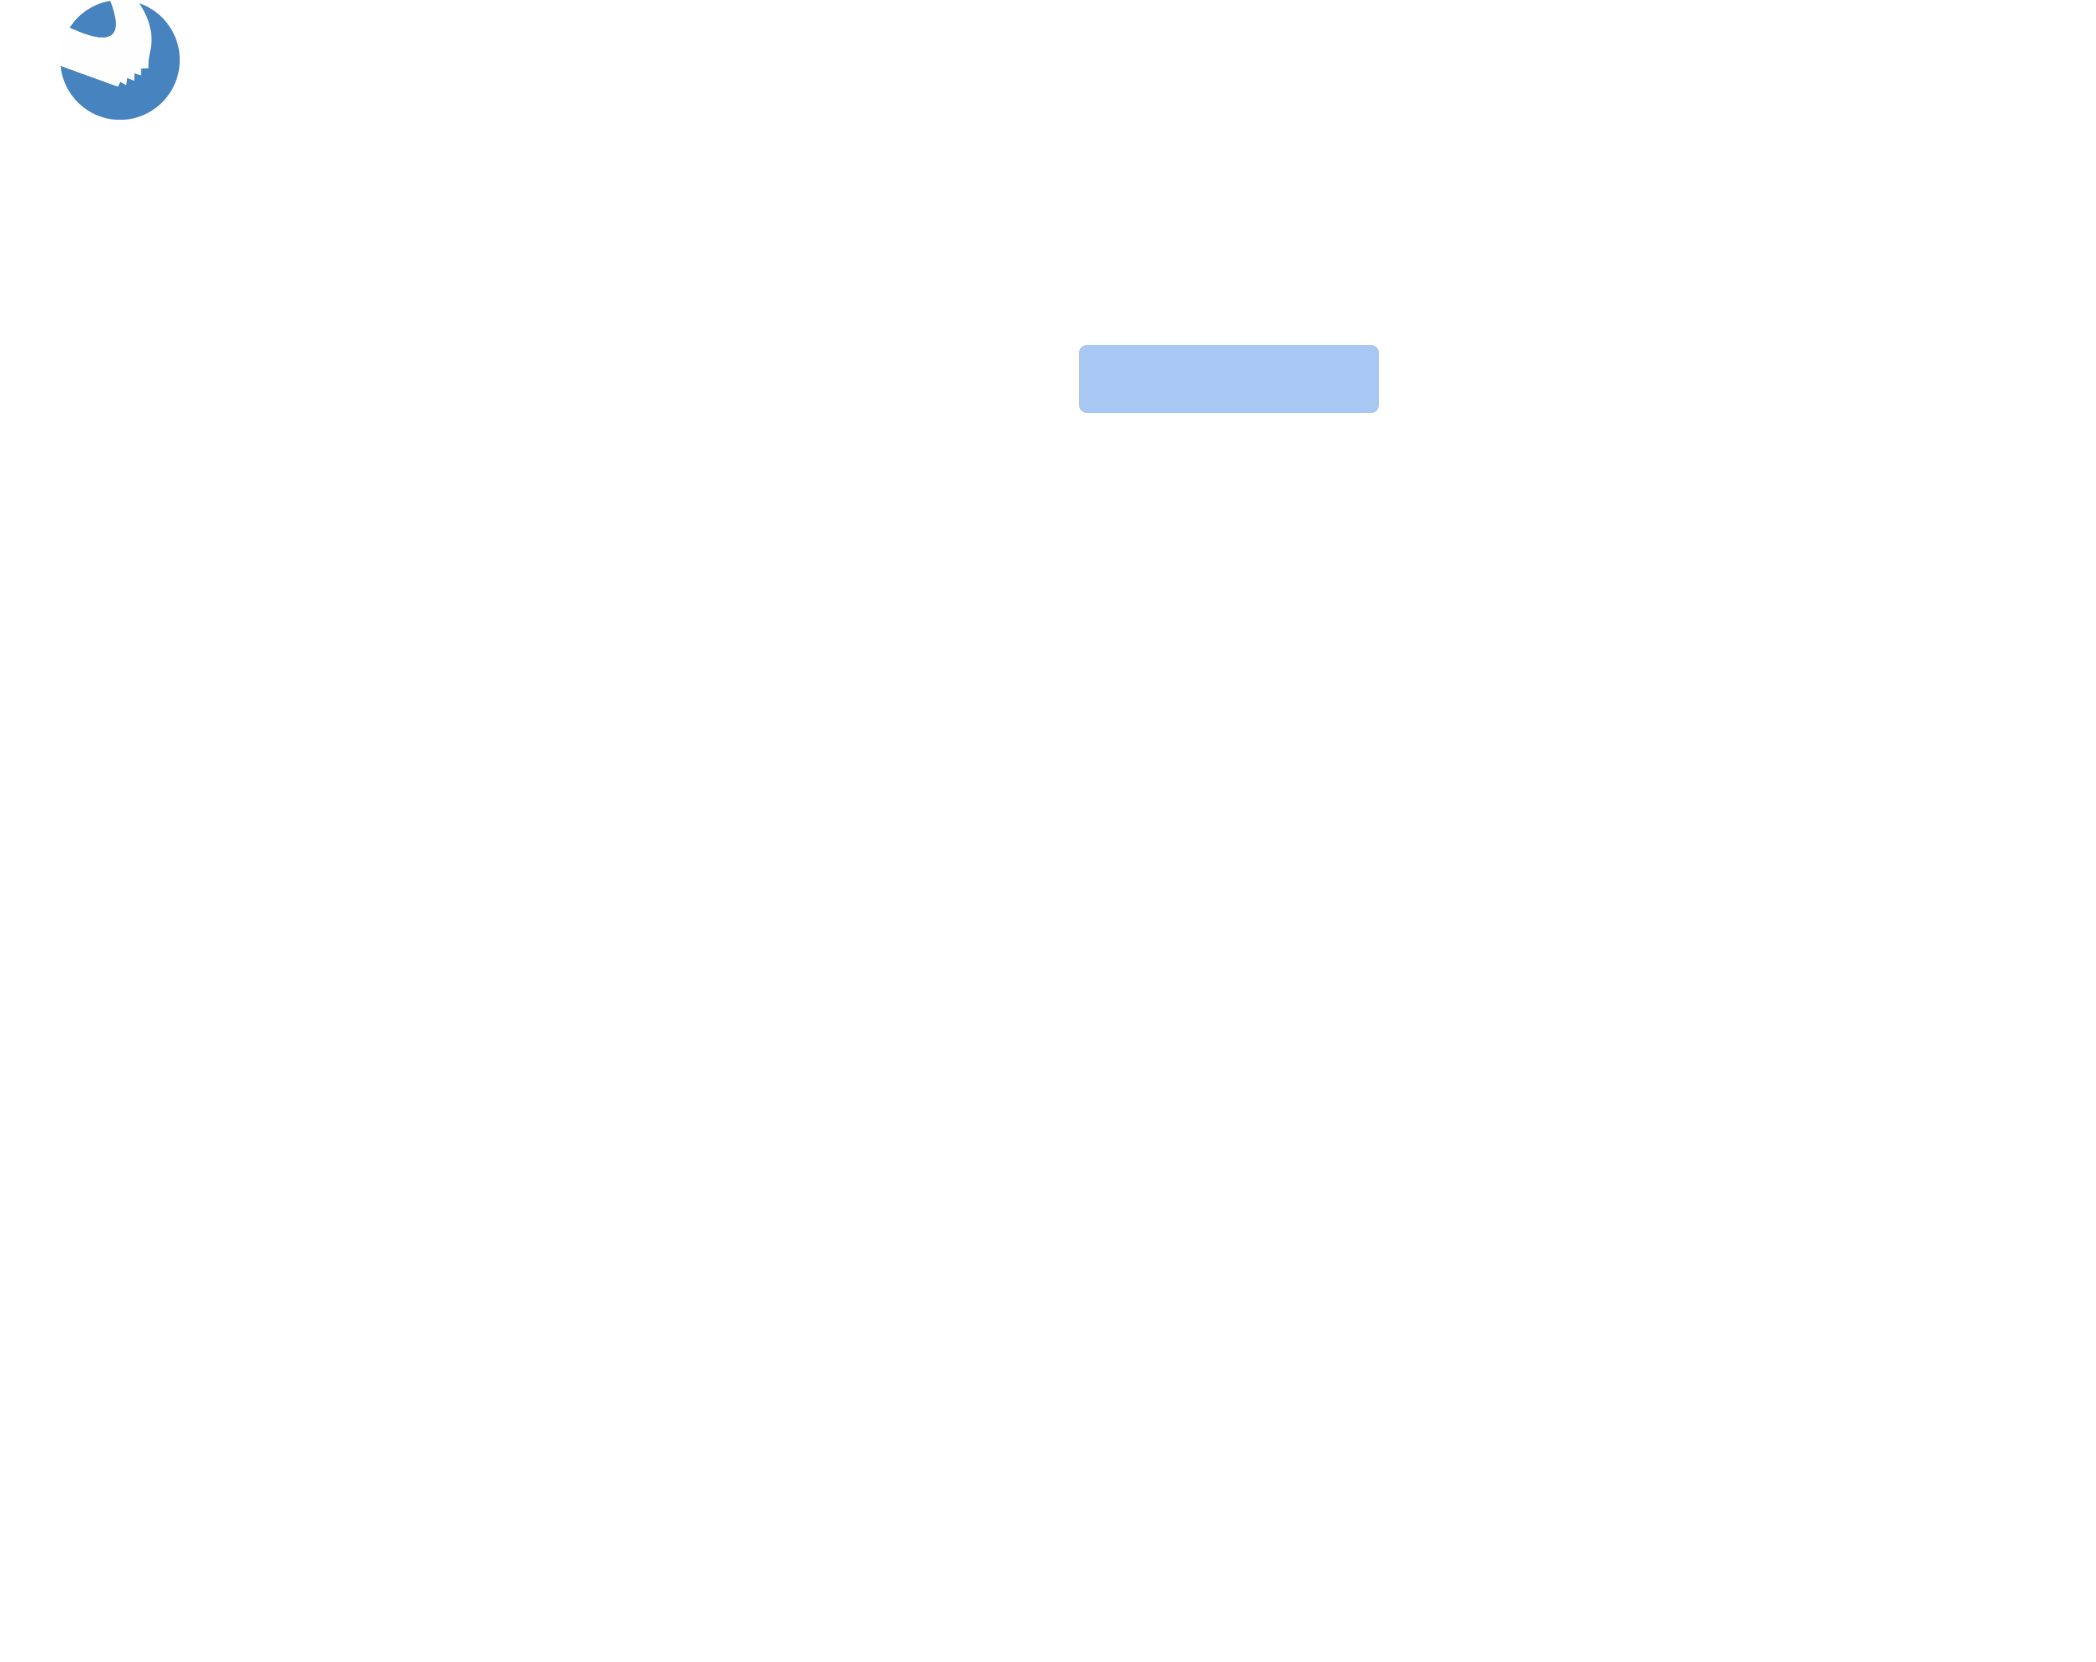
#include <cairo.h>
#include <math.h>
#include <stddef.h>


static void rgb(cairo_t *cr, int r, int g, int b)
{
	cairo_set_source_rgb(cr, r / 255.0, g / 255.0, b / 255.0);
}

static void rrect(cairo_t *cr, double x, double y, double w, double h, double r)
{
	cairo_new_sub_path(cr);
	cairo_arc(cr, x + w - r, y + h - r, r, 0, M_PI / 2);
	cairo_arc(cr, x + r, y + h - r, r, M_PI / 2, M_PI);
	cairo_arc(cr, x + r, y + r, r, M_PI, 1.5 * M_PI);
	cairo_arc(cr, x + w - r, y + r, r, 1.5 * M_PI, 2 * M_PI);
	cairo_close_path(cr);
}

static void image(cairo_t *cr, const char *path, double x, double y, double w, double h)
{
	cairo_surface_t *image = cairo_image_surface_create_from_png(path);
	cairo_save(cr);
	cairo_set_source_surface(cr, image, x, y);
	cairo_rectangle(cr, x, y, w, h);
	cairo_fill(cr);
	cairo_restore(cr);
	cairo_surface_destroy(image);
}

static void draw(cairo_t *cr) {
	rgb(cr, 255, 255, 255);
	cairo_paint(cr);
	image(cr, "image0.png", 60, 0, 120, 120);
	rgb(cr, 169, 199, 243);
	rrect(cr, 1079, 345, 300, 68, 8);
	cairo_fill(cr);
}

int main(void) {
	cairo_surface_t *surface = cairo_image_surface_create(CAIRO_FORMAT_RGB24, 2096, 1662);
	cairo_t *cr = cairo_create(surface);
	cairo_font_options_t *options = cairo_font_options_create();
	cairo_font_options_set_hint_metrics(options, CAIRO_HINT_METRICS_OFF);
	cairo_font_options_set_hint_style(options, CAIRO_HINT_STYLE_NONE);
	cairo_set_font_options(cr, options);
	cairo_set_miter_limit(cr, 4);
	draw(cr);
	cairo_surface_write_to_png(surface, "render.png");
	cairo_font_options_destroy(options);
	cairo_destroy(cr);
	cairo_surface_destroy(surface);
	return 0;
}
